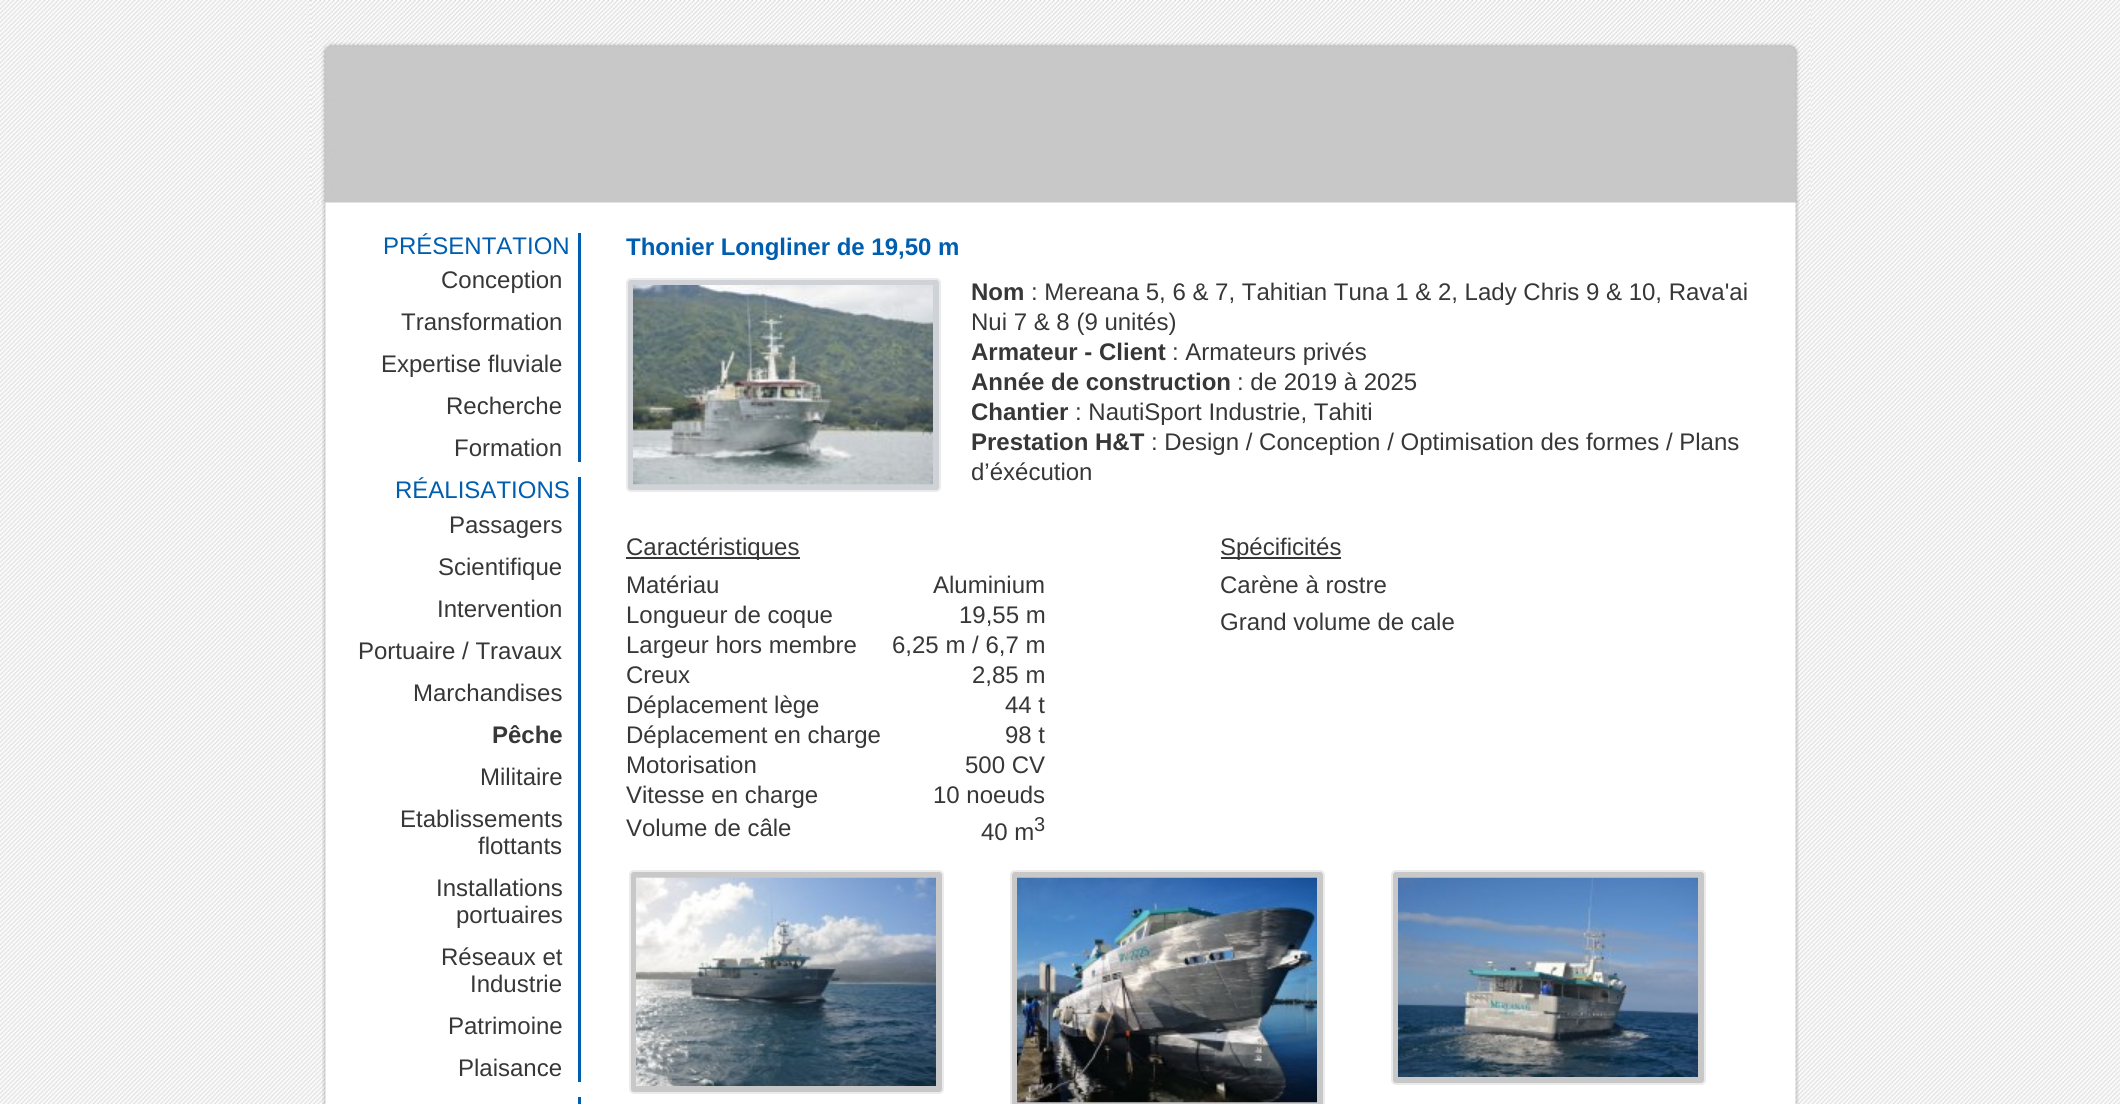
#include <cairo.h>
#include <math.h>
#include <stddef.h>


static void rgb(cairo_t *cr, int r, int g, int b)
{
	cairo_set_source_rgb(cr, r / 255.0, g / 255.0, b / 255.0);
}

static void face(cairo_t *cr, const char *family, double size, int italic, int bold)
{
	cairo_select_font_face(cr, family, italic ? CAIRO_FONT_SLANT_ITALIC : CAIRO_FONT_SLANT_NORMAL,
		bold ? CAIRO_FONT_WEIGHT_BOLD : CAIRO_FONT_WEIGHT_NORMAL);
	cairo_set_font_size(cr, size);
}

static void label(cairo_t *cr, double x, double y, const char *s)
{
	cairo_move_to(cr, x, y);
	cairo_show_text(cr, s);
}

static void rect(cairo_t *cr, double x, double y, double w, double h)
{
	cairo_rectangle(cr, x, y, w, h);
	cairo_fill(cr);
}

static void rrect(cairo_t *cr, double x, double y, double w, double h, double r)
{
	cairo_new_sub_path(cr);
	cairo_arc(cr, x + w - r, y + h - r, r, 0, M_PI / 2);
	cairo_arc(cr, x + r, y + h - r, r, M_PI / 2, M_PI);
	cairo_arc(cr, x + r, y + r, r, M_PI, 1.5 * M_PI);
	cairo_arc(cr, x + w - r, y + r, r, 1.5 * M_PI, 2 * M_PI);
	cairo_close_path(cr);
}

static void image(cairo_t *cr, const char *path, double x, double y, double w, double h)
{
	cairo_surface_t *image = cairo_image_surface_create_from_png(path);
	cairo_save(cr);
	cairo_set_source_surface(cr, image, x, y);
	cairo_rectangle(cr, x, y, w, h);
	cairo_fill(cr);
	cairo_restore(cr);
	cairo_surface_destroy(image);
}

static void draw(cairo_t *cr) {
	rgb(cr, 255, 255, 255);
	cairo_paint(cr);
	image(cr, "image0.png", 0, 0, 2120, 1104);
	image(cr, "image1.png", 322, 202, 1477, 902);
	image(cr, "image2.png", 310, 0, 1501, 203);
	rgb(cr, 0, 94, 176);
	rect(cr, 578, 233, 3, 229);
	face(cr, "Liberation Sans", 24, 0, 0);
	label(cr, 383, 254, "PRÉSENTATION");
	rgb(cr, 55, 55, 55);
	label(cr, 441, 288, "Conception");
	label(cr, 401, 330, "Transformation");
	label(cr, 381, 372, "Expertise fluviale");
	label(cr, 446, 414, "Recherche");
	label(cr, 454, 456, "Formation");
	rgb(cr, 0, 94, 176);
	rect(cr, 578, 477, 3, 605);
	label(cr, 395, 498, "RÉALISATIONS");
	rgb(cr, 55, 55, 55);
	label(cr, 449, 533, "Passagers");
	label(cr, 438, 575, "Scientifique");
	label(cr, 437, 617, "Intervention");
	label(cr, 358, 659, "Portuaire / Travaux");
	label(cr, 413, 701, "Marchandises");
	face(cr, "Liberation Sans", 24, 0, 1);
	label(cr, 492, 743, "Pêche");
	face(cr, "Liberation Sans", 24, 0, 0);
	label(cr, 480, 785, "Militaire");
	label(cr, 400, 827, "Etablissements");
	label(cr, 478, 854, "flottants");
	label(cr, 436, 896, "Installations");
	label(cr, 456, 923, "portuaires");
	label(cr, 441, 965, "Réseaux et");
	label(cr, 470, 992, "Industrie");
	label(cr, 448, 1034, "Patrimoine");
	label(cr, 458, 1076, "Plaisance");
	rgb(cr, 0, 94, 176);
	rect(cr, 578, 1097, 3, 7);
	face(cr, "Liberation Sans", 24, 0, 1);
	label(cr, 626, 255, "Thonier Longliner de 19,50 m");
	rgb(cr, 207, 210, 214);
	rrect(cr, 627, 279, 313, 212, 4);
	cairo_fill_preserve(cr);
	rgb(cr, 235, 235, 235);
	cairo_stroke(cr);
	image(cr, "image3.png", 633, 285, 300, 200);
	rgb(cr, 55, 55, 55);
	label(cr, 971, 300, "Nom");
	face(cr, "Liberation Sans", 24, 0, 0);
	label(cr, 1031, 300, ": Mereana 5, 6 & 7, Tahitian Tuna 1 & 2, Lady Chris 9 & 10, Rava'ai");
	label(cr, 971, 330, "Nui 7 & 8 (9 unités)");
	face(cr, "Liberation Sans", 24, 0, 1);
	label(cr, 971, 360, "Armateur - Client");
	face(cr, "Liberation Sans", 24, 0, 0);
	label(cr, 1172, 360, ": Armateurs privés");
	face(cr, "Liberation Sans", 24, 0, 1);
	label(cr, 971, 390, "Année de construction");
	face(cr, "Liberation Sans", 24, 0, 0);
	label(cr, 1237, 390, ": de 2019 à 2025");
	face(cr, "Liberation Sans", 24, 0, 1);
	label(cr, 971, 420, "Chantier");
	face(cr, "Liberation Sans", 24, 0, 0);
	label(cr, 1075, 420, ": NautiSport Industrie, Tahiti");
	face(cr, "Liberation Sans", 24, 0, 1);
	label(cr, 971, 450, "Prestation H&T");
	face(cr, "Liberation Sans", 24, 0, 0);
	label(cr, 1151, 450, ": Design / Conception / Optimisation des formes / Plans");
	label(cr, 971, 480, "d’éxécution");
	rect(cr, 626, 557, 174, 2);
	label(cr, 626, 555, "Caractéristiques");
	label(cr, 626, 593, "Matériau");
	label(cr, 933, 593, "Aluminium");
	label(cr, 626, 623, "Longueur de coque");
	label(cr, 959, 623, "19,55 m");
	label(cr, 626, 653, "Largeur hors membre");
	label(cr, 892, 653, "6,25 m / 6,7 m");
	label(cr, 626, 683, "Creux");
	label(cr, 972, 683, "2,85 m");
	label(cr, 626, 713, "Déplacement lège");
	label(cr, 1005, 713, "44 t");
	label(cr, 626, 743, "Déplacement en charge");
	label(cr, 1005, 743, "98 t");
	label(cr, 626, 773, "Motorisation");
	label(cr, 965, 773, "500 CV");
	label(cr, 626, 803, "Vitesse en charge");
	label(cr, 933, 803, "10 noeuds");
	label(cr, 626, 836, "Volume de câle");
	label(cr, 981, 840, "40 m");
	face(cr, "Liberation Sans", 20, 0, 0);
	label(cr, 1034, 831, "3");
	rect(cr, 1221, 557, 120, 2);
	face(cr, "Liberation Sans", 24, 0, 0);
	label(cr, 1220, 555, "Spécificités");
	label(cr, 1220, 593, "Carène à rostre");
	label(cr, 1220, 630, "Grand volume de cale");
	rgb(cr, 200, 200, 200);
	rrect(cr, 630, 871, 313, 222, 4);
	cairo_fill_preserve(cr);
	rgb(cr, 235, 235, 235);
	cairo_stroke(cr);
	image(cr, "image4.png", 636, 877, 300, 209);
	rgb(cr, 200, 200, 200);
	rrect(cr, 1011, 871, 313, 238, 4);
	cairo_fill_preserve(cr);
	rgb(cr, 235, 235, 235);
	cairo_stroke(cr);
	image(cr, "image5.png", 1017, 877, 300, 226);
	rgb(cr, 200, 200, 200);
	rrect(cr, 1392, 871, 313, 213, 4);
	cairo_fill_preserve(cr);
	rgb(cr, 235, 235, 235);
	cairo_stroke(cr);
	image(cr, "image6.png", 1398, 877, 300, 200);
}

int main(void) {
	cairo_surface_t *surface = cairo_image_surface_create(CAIRO_FORMAT_RGB24, 2120, 1104);
	cairo_t *cr = cairo_create(surface);
	cairo_font_options_t *options = cairo_font_options_create();
	cairo_font_options_set_hint_metrics(options, CAIRO_HINT_METRICS_OFF);
	cairo_font_options_set_hint_style(options, CAIRO_HINT_STYLE_NONE);
	cairo_set_font_options(cr, options);
	cairo_set_miter_limit(cr, 4);
	draw(cr);
	cairo_surface_write_to_png(surface, "render.png");
	cairo_font_options_destroy(options);
	cairo_destroy(cr);
	cairo_surface_destroy(surface);
	return 0;
}
